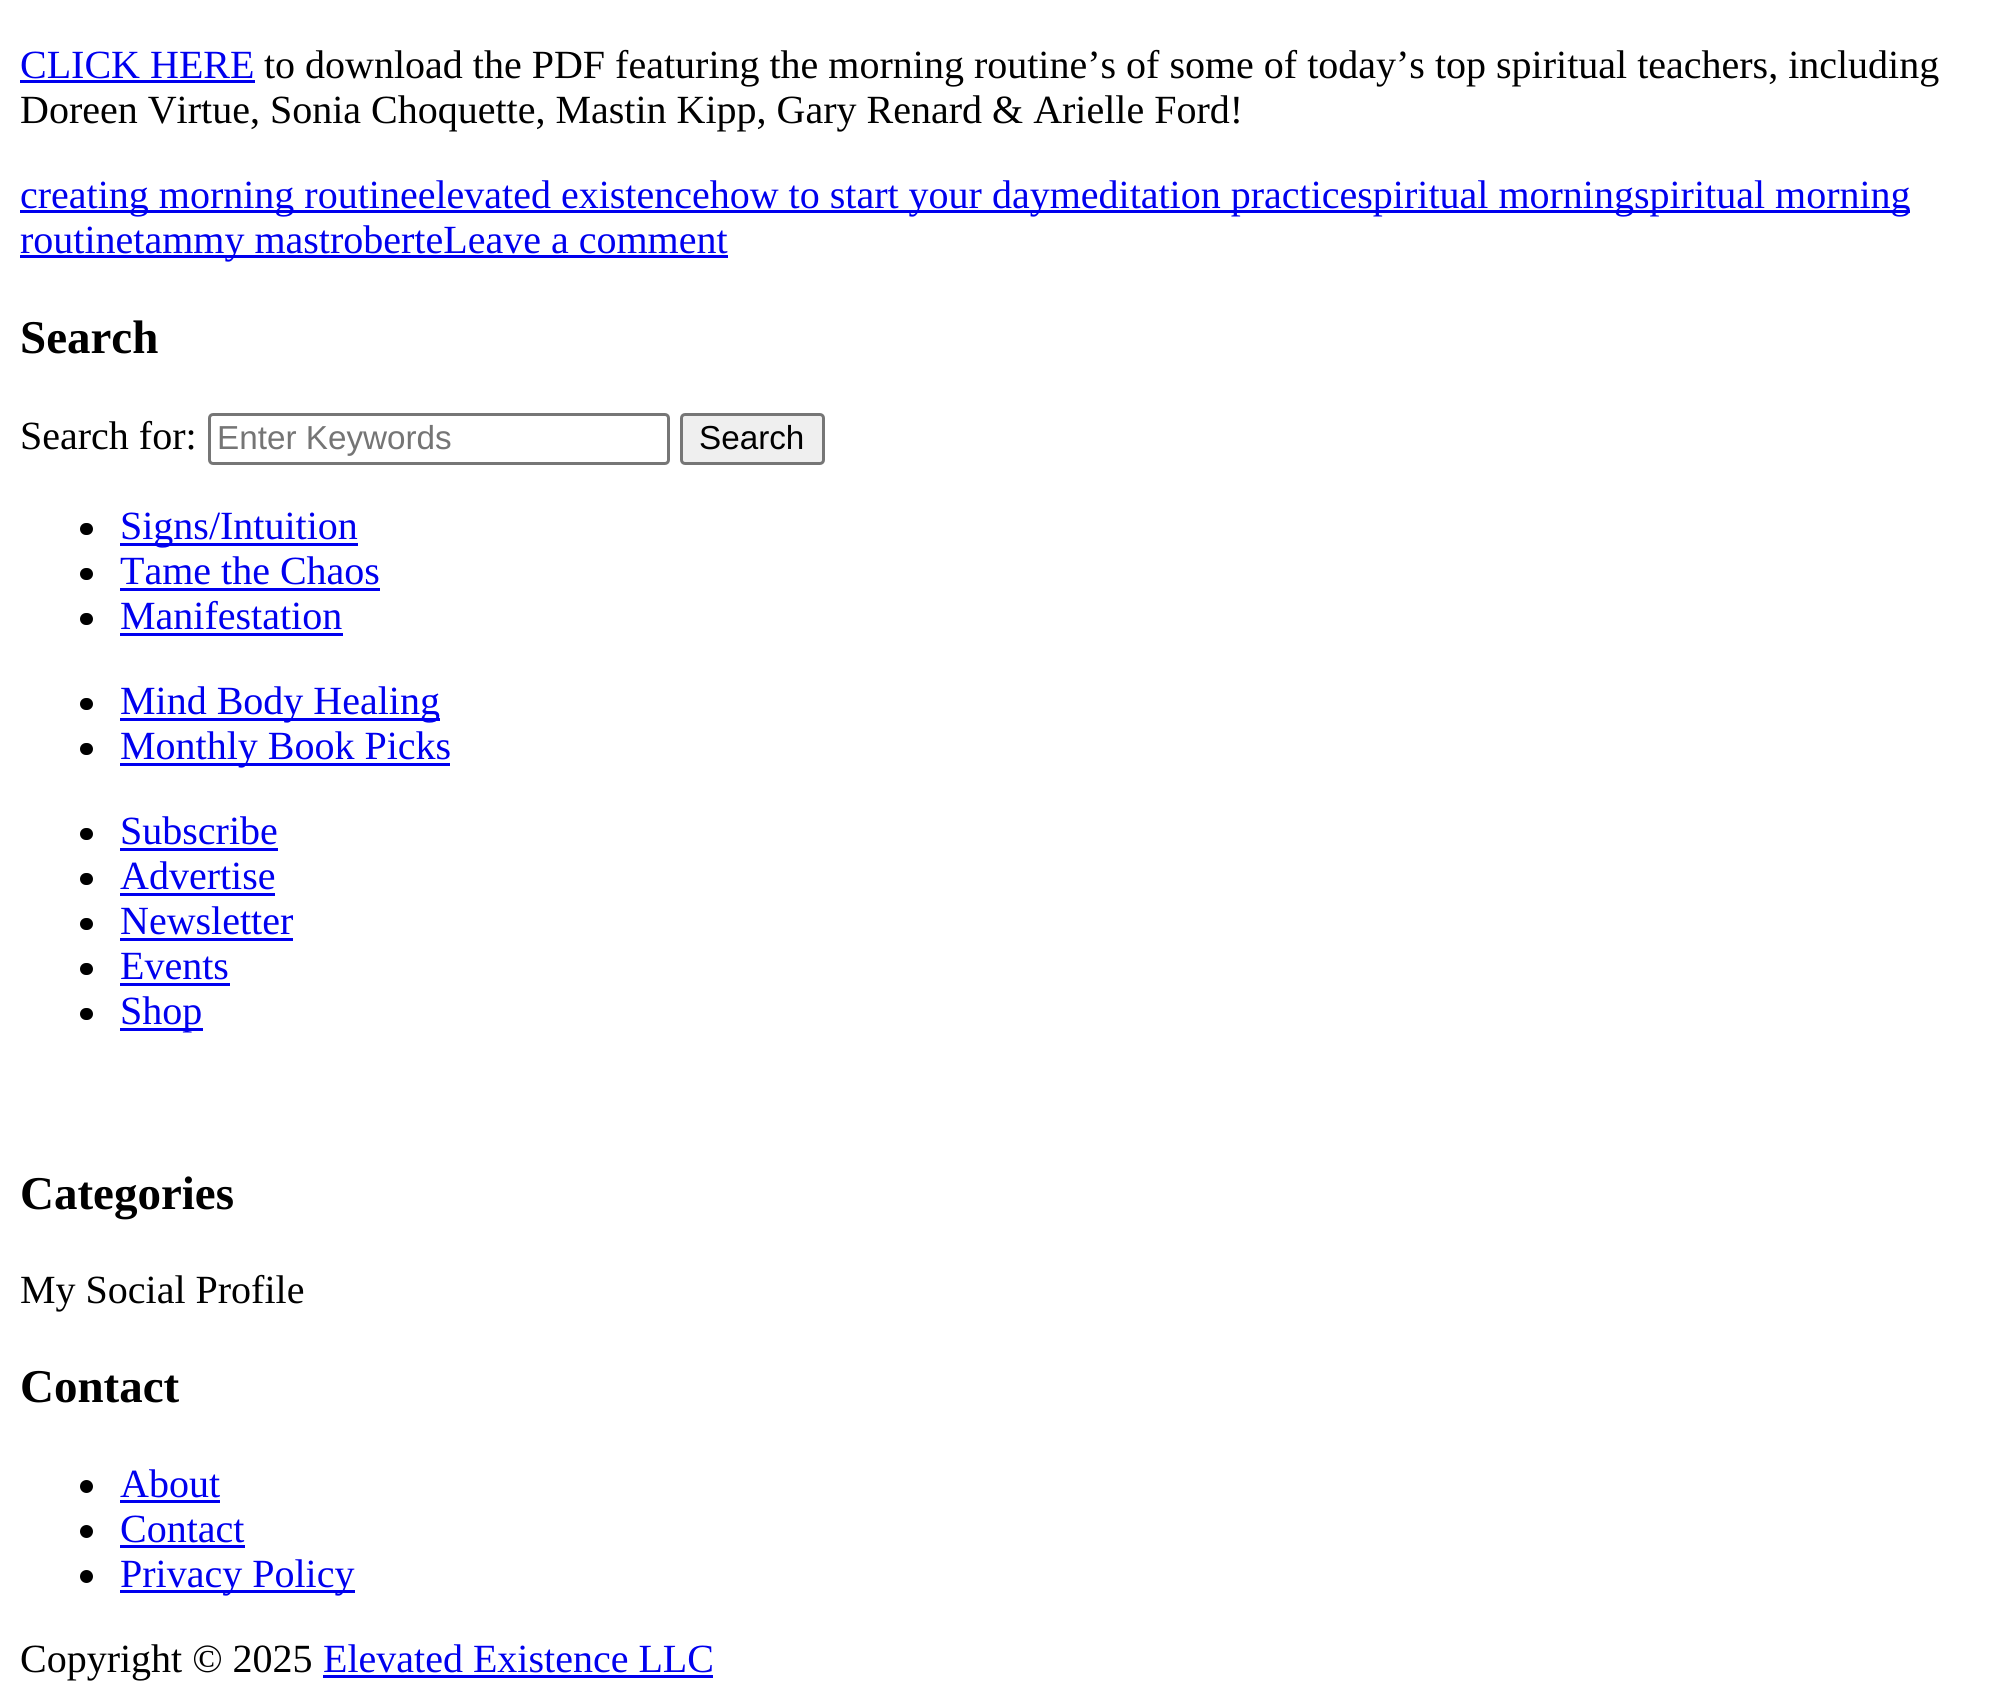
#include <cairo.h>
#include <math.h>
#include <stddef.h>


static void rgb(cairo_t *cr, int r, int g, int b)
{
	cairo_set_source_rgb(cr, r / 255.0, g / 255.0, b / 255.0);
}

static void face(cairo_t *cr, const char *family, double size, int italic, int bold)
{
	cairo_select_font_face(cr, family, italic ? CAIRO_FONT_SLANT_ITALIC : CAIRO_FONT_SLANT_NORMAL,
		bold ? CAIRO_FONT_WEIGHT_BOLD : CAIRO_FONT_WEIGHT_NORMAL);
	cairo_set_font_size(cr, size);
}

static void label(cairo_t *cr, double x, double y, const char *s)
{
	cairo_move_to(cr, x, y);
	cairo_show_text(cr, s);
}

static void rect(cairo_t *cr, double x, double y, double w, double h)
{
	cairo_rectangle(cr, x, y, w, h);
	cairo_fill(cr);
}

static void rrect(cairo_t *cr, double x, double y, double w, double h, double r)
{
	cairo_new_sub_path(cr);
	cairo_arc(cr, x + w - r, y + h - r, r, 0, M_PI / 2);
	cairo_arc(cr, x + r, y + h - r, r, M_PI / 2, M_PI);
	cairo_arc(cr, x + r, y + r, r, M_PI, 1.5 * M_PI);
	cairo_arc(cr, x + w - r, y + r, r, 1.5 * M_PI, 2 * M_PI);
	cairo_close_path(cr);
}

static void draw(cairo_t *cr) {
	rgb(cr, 255, 255, 255);
	cairo_paint(cr);
	face(cr, "Liberation Serif", 40, 0, 0);
	rgb(cr, 0, 0, 238);
	label(cr, 20, 78, "CLICK HERE");
	rect(cr, 20, 80, 235, 3);
	rgb(cr, 0, 0, 0);
	label(cr, 264, 78, "to download the PDF featuring the morning routine’s of some of today’s top spiritual teachers, including");
	label(cr, 20, 123, "Doreen Virtue, Sonia Choquette, Mastin Kipp, Gary Renard & Arielle Ford!");
	rgb(cr, 0, 0, 238);
	rect(cr, 20, 210, 1890, 3);
	label(cr, 20, 208, "creating morning routineelevated existencehow to start your daymeditation practicespiritual morningspiritual morning");
	rect(cr, 20, 255, 708, 3);
	label(cr, 20, 253, "routinetammy mastroberteLeave a comment");
	face(cr, "Liberation Serif", 47, 0, 1);
	rgb(cr, 0, 0, 0);
	label(cr, 20, 353, "Search");
	face(cr, "Liberation Serif", 40, 0, 0);
	label(cr, 20, 449, "Search for:");
	rrect(cr, 209.5, 414.5, 459, 49, 3.5);
	rgb(cr, 118, 118, 118);
	cairo_set_line_width(cr, 3);
	cairo_stroke(cr);
	face(cr, "Liberation Sans", 33.25, 0, 0);
	rgb(cr, 117, 117, 117);
	label(cr, 217, 449, "Enter Keywords");
	rgb(cr, 239, 239, 239);
	rrect(cr, 681.5, 414.5, 142, 49, 3.5);
	cairo_fill_preserve(cr);
	rgb(cr, 118, 118, 118);
	cairo_stroke(cr);
	rgb(cr, 0, 0, 0);
	label(cr, 699, 449, "Search");
	rrect(cr, 80, 523, 13, 12, 6);
	cairo_fill(cr);
	rgb(cr, 0, 0, 238);
	rect(cr, 120, 543, 238, 3);
	face(cr, "Liberation Serif", 40, 0, 0);
	label(cr, 120, 539, "Signs/Intuition");
	rgb(cr, 0, 0, 0);
	rrect(cr, 80, 568, 13, 12, 6);
	cairo_fill(cr);
	rgb(cr, 0, 0, 238);
	label(cr, 120, 584, "Tame the Chaos");
	rect(cr, 120, 588, 260, 3);
	rgb(cr, 0, 0, 0);
	rrect(cr, 80, 613, 13, 12, 6);
	cairo_fill(cr);
	rgb(cr, 0, 0, 238);
	label(cr, 120, 629, "Manifestation");
	rect(cr, 120, 633, 223, 3);
	rgb(cr, 0, 0, 0);
	rrect(cr, 80, 698, 13, 12, 6);
	cairo_fill(cr);
	rgb(cr, 0, 0, 238);
	rect(cr, 120, 718, 320, 3);
	label(cr, 120, 714, "Mind Body Healing");
	rgb(cr, 0, 0, 0);
	rrect(cr, 80, 743, 13, 12, 6);
	cairo_fill(cr);
	rgb(cr, 0, 0, 238);
	rect(cr, 120, 763, 330, 3);
	label(cr, 120, 759, "Monthly Book Picks");
	rgb(cr, 0, 0, 0);
	rrect(cr, 80, 828, 13, 12, 6);
	cairo_fill(cr);
	rgb(cr, 0, 0, 238);
	label(cr, 120, 844, "Subscribe");
	rect(cr, 120, 848, 158, 3);
	rgb(cr, 0, 0, 0);
	rrect(cr, 80, 873, 13, 12, 6);
	cairo_fill(cr);
	rgb(cr, 0, 0, 238);
	label(cr, 120, 889, "Advertise");
	rect(cr, 120, 893, 155, 3);
	rgb(cr, 0, 0, 0);
	rrect(cr, 80, 918, 13, 12, 6);
	cairo_fill(cr);
	rgb(cr, 0, 0, 238);
	label(cr, 120, 934, "Newsletter");
	rect(cr, 120, 938, 173, 3);
	rgb(cr, 0, 0, 0);
	rrect(cr, 80, 963, 13, 12, 6);
	cairo_fill(cr);
	rgb(cr, 0, 0, 238);
	label(cr, 120, 979, "Events");
	rect(cr, 120, 983, 110, 3);
	rgb(cr, 0, 0, 0);
	rrect(cr, 80, 1008, 13, 12, 6);
	cairo_fill(cr);
	rgb(cr, 0, 0, 238);
	rect(cr, 120, 1028, 83, 3);
	label(cr, 120, 1024, "Shop");
	face(cr, "Liberation Serif", 47, 0, 1);
	rgb(cr, 0, 0, 0);
	label(cr, 20, 1209, "Categories");
	face(cr, "Liberation Serif", 40, 0, 0);
	label(cr, 20, 1303, "My Social Profile");
	face(cr, "Liberation Serif", 47, 0, 1);
	label(cr, 20, 1402, "Contact");
	cairo_new_path(cr);
	cairo_arc(cr, 86.5, 1486.5, 6.5, 0, 2 * M_PI);
	cairo_fill(cr);
	face(cr, "Liberation Serif", 40, 0, 0);
	rgb(cr, 0, 0, 238);
	label(cr, 120, 1497, "About");
	rect(cr, 120, 1500, 100, 3);
	rgb(cr, 0, 0, 0);
	cairo_new_path(cr);
	cairo_arc(cr, 86.5, 1531.5, 6.5, 0, 2 * M_PI);
	cairo_fill(cr);
	rgb(cr, 0, 0, 238);
	label(cr, 120, 1542, "Contact");
	rect(cr, 120, 1545, 125, 3);
	rgb(cr, 0, 0, 0);
	cairo_new_path(cr);
	cairo_arc(cr, 86.5, 1576.5, 6.5, 0, 2 * M_PI);
	cairo_fill(cr);
	rgb(cr, 0, 0, 238);
	rect(cr, 120, 1590, 235, 3);
	label(cr, 120, 1587, "Privacy Policy");
	rgb(cr, 0, 0, 0);
	label(cr, 20, 1672, "Copyright © 2025");
	rgb(cr, 0, 0, 238);
	label(cr, 323, 1672, "Elevated Existence LLC");
	rect(cr, 323, 1675, 390, 3);
}

int main(void) {
	cairo_surface_t *surface = cairo_image_surface_create(CAIRO_FORMAT_RGB24, 2013, 1702);
	cairo_t *cr = cairo_create(surface);
	cairo_font_options_t *options = cairo_font_options_create();
	cairo_font_options_set_hint_metrics(options, CAIRO_HINT_METRICS_OFF);
	cairo_font_options_set_hint_style(options, CAIRO_HINT_STYLE_NONE);
	cairo_set_font_options(cr, options);
	cairo_set_miter_limit(cr, 4);
	draw(cr);
	cairo_surface_write_to_png(surface, "render.png");
	cairo_font_options_destroy(options);
	cairo_destroy(cr);
	cairo_surface_destroy(surface);
	return 0;
}
